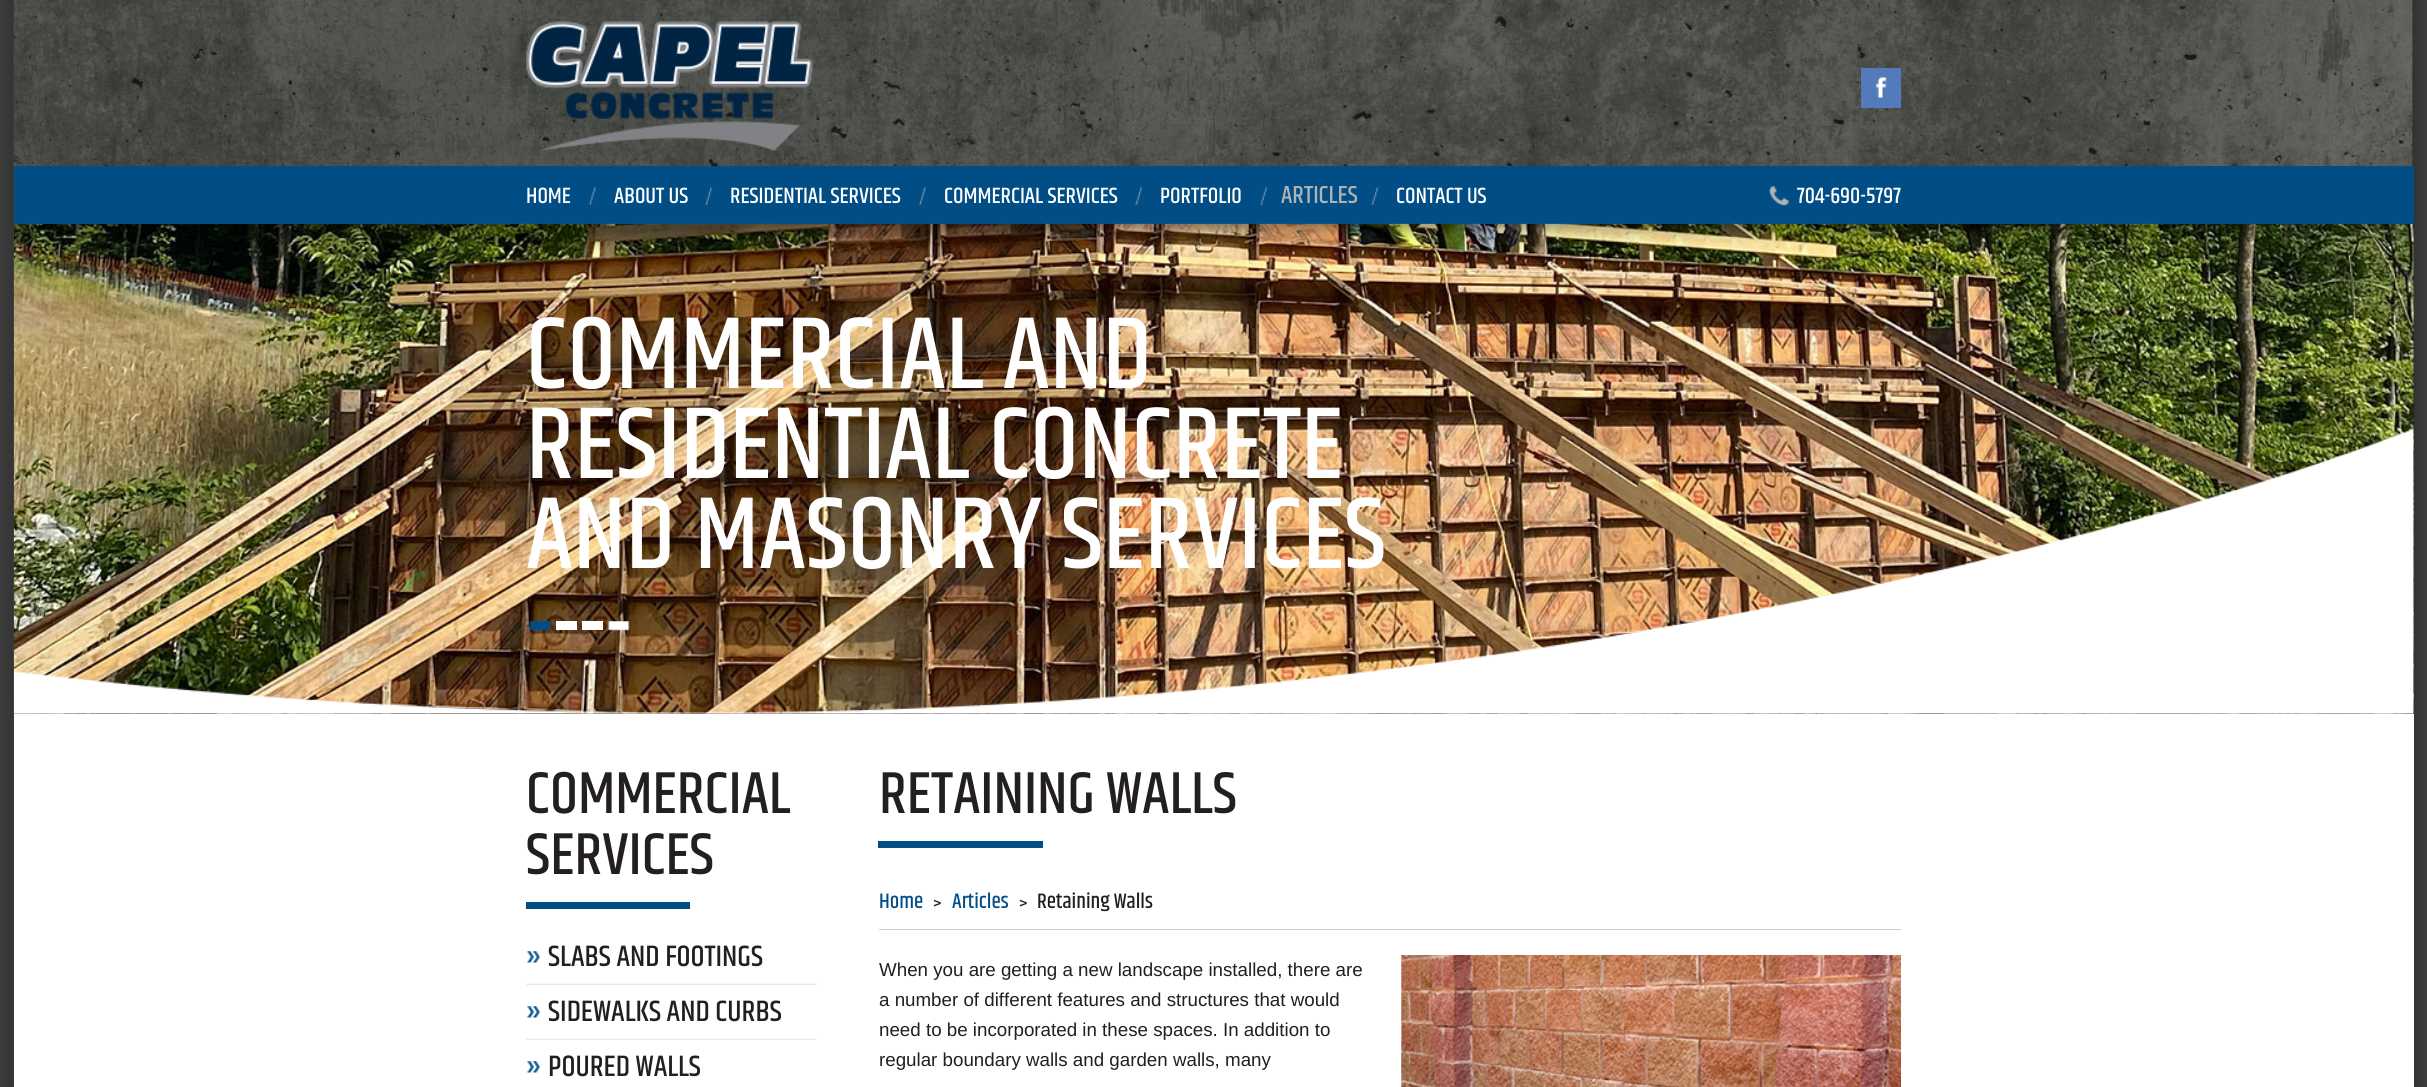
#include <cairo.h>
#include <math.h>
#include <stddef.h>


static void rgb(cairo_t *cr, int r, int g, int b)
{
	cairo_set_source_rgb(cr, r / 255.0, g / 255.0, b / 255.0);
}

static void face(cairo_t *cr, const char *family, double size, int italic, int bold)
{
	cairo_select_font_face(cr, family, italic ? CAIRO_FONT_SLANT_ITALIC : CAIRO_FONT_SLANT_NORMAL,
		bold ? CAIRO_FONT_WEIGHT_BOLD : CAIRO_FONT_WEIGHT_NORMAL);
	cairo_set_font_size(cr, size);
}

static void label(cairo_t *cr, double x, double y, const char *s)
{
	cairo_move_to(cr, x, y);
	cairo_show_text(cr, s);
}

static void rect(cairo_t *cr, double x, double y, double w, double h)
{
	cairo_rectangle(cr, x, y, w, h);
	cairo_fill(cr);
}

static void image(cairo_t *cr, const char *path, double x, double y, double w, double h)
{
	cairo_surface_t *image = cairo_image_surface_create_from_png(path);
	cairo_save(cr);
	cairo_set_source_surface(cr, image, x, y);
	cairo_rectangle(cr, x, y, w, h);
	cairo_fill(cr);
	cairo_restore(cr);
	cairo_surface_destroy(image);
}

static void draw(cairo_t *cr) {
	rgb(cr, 81, 81, 81);
	cairo_paint(cr);
	image(cr, "image0.png", 0, 0, 2427, 1087);
	rgb(cr, 67, 69, 65);
	rect(cr, 2413, 0, 1, 166);
	image(cr, "image1.png", 14, 0, 2400, 166);
	image(cr, "image2.png", 526, 21, 287, 130);
	rgb(cr, 83, 122, 187);
	rect(cr, 1861, 68, 40, 40);
	image(cr, "image3.png", 1876, 77, 11, 21);
	rgb(cr, 1, 77, 133);
	rect(cr, 14, 166, 2400, 58);
	image(cr, "image4.png", 588, 186, 9, 19);
	face(cr, "Khand Medium", 22.5, 0, 0);
	rgb(cr, 255, 255, 255);
	label(cr, 526, 203, "HOME");
	image(cr, "image5.png", 705, 186, 8, 19);
	label(cr, 614, 203, "ABOUT US");
	image(cr, "image6.png", 918, 186, 9, 19);
	label(cr, 730, 203, "RESIDENTIAL SERVICES");
	image(cr, "image5.png", 1135, 186, 8, 19);
	label(cr, 944, 203, "COMMERCIAL SERVICES");
	image(cr, "image7.png", 1260, 186, 8, 19);
	label(cr, 1160, 203, "PORTFOLIO");
	image(cr, "image8.png", 1371, 186, 8, 19);
	face(cr, "Khand Medium", 25, 0, 0);
	rgb(cr, 175, 179, 181);
	label(cr, 1281, 203, "ARTICLES");
	face(cr, "Khand Medium", 22.5, 0, 0);
	rgb(cr, 255, 255, 255);
	label(cr, 1396, 203, "CONTACT US");
	image(cr, "image9.png", 1768, 186, 21, 20);
	label(cr, 1797, 203, "704-690-5797");
	rgb(cr, 35, 31, 32);
	rect(cr, 14, 224, 2400, 490);
	image(cr, "image11.png", 13, 223, 2401, 491);
	image(cr, "image10.png", 79, 224, 2267, 27);
	face(cr, "Khand Medium", 103.75, 0, 0);
	rgb(cr, 255, 255, 255);
	label(cr, 526, 388, "COMMERCIAL AND");
	image(cr, "image14.png", 14, 428, 2400, 286);
	label(cr, 526, 478, "RESIDENTIAL CONCRETE");
	label(cr, 526, 568, "AND MASONRY SERVICES");
	image(cr, "image12.png", 529, 621, 22, 10);
	rect(cr, 556, 621, 21, 9);
	rect(cr, 582, 621, 21, 9);
	image(cr, "image13.png", 608, 621, 22, 10);
	rect(cr, 14, 714, 2400, 373);
	rgb(cr, 1, 77, 133);
	rect(cr, 526, 902, 164, 7);
	face(cr, "Khand Medium", 60, 0, 0);
	rgb(cr, 35, 31, 32);
	label(cr, 526, 813, "COMMERCIAL");
	label(cr, 526, 874, "SERVICES");
	image(cr, "image15.png", 526, 983, 291, 2);
	image(cr, "image16.png", 526, 951, 14, 12);
	face(cr, "Khand Medium", 30, 0, 0);
	label(cr, 548, 966, "SLABS AND FOOTINGS");
	image(cr, "image15.png", 526, 1038, 291, 2);
	image(cr, "image16.png", 526, 1006, 14, 12);
	label(cr, 548, 1021, "SIDEWALKS AND CURBS");
	image(cr, "image16.png", 526, 1061, 14, 12);
	label(cr, 548, 1076, "POURED WALLS");
	rgb(cr, 1, 77, 133);
	rect(cr, 878, 841, 165, 7);
	face(cr, "Khand Medium", 60, 0, 0);
	rgb(cr, 35, 31, 32);
	label(cr, 879, 813, "RETAINING WALLS");
	rgb(cr, 204, 204, 204);
	rect(cr, 879, 929, 1022, 1);
	face(cr, "Khand Medium", 21.25, 0, 0);
	rgb(cr, 1, 77, 133);
	label(cr, 879, 908, "Home");
	face(cr, "Khand Medium", 18, 0, 0);
	rgb(cr, 35, 31, 32);
	label(cr, 933, 909, ">");
	face(cr, "Khand Medium", 21.25, 0, 0);
	rgb(cr, 1, 77, 133);
	label(cr, 952, 908, "Articles");
	face(cr, "Khand Medium", 18, 0, 0);
	rgb(cr, 35, 31, 32);
	label(cr, 1019, 909, ">");
	face(cr, "Khand Medium", 21.25, 0, 0);
	label(cr, 1037, 908, "Retaining Walls");
	face(cr, "Liberation Sans", 18.75, 0, 0);
	label(cr, 879, 976, "When you are getting a new landscape installed, there are");
	label(cr, 879, 1006, "a number of different features and structures that would");
	label(cr, 879, 1036, "need to be incorporated in these spaces. In addition to");
	label(cr, 879, 1066, "regular boundary walls and garden walls, many");
	image(cr, "image17.png", 1401, 955, 500, 132);
}

int main(void) {
	cairo_surface_t *surface = cairo_image_surface_create(CAIRO_FORMAT_RGB24, 2427, 1087);
	cairo_t *cr = cairo_create(surface);
	cairo_font_options_t *options = cairo_font_options_create();
	cairo_font_options_set_hint_metrics(options, CAIRO_HINT_METRICS_OFF);
	cairo_font_options_set_hint_style(options, CAIRO_HINT_STYLE_NONE);
	cairo_set_font_options(cr, options);
	cairo_set_miter_limit(cr, 4);
	draw(cr);
	cairo_surface_write_to_png(surface, "render.png");
	cairo_font_options_destroy(options);
	cairo_destroy(cr);
	cairo_surface_destroy(surface);
	return 0;
}
